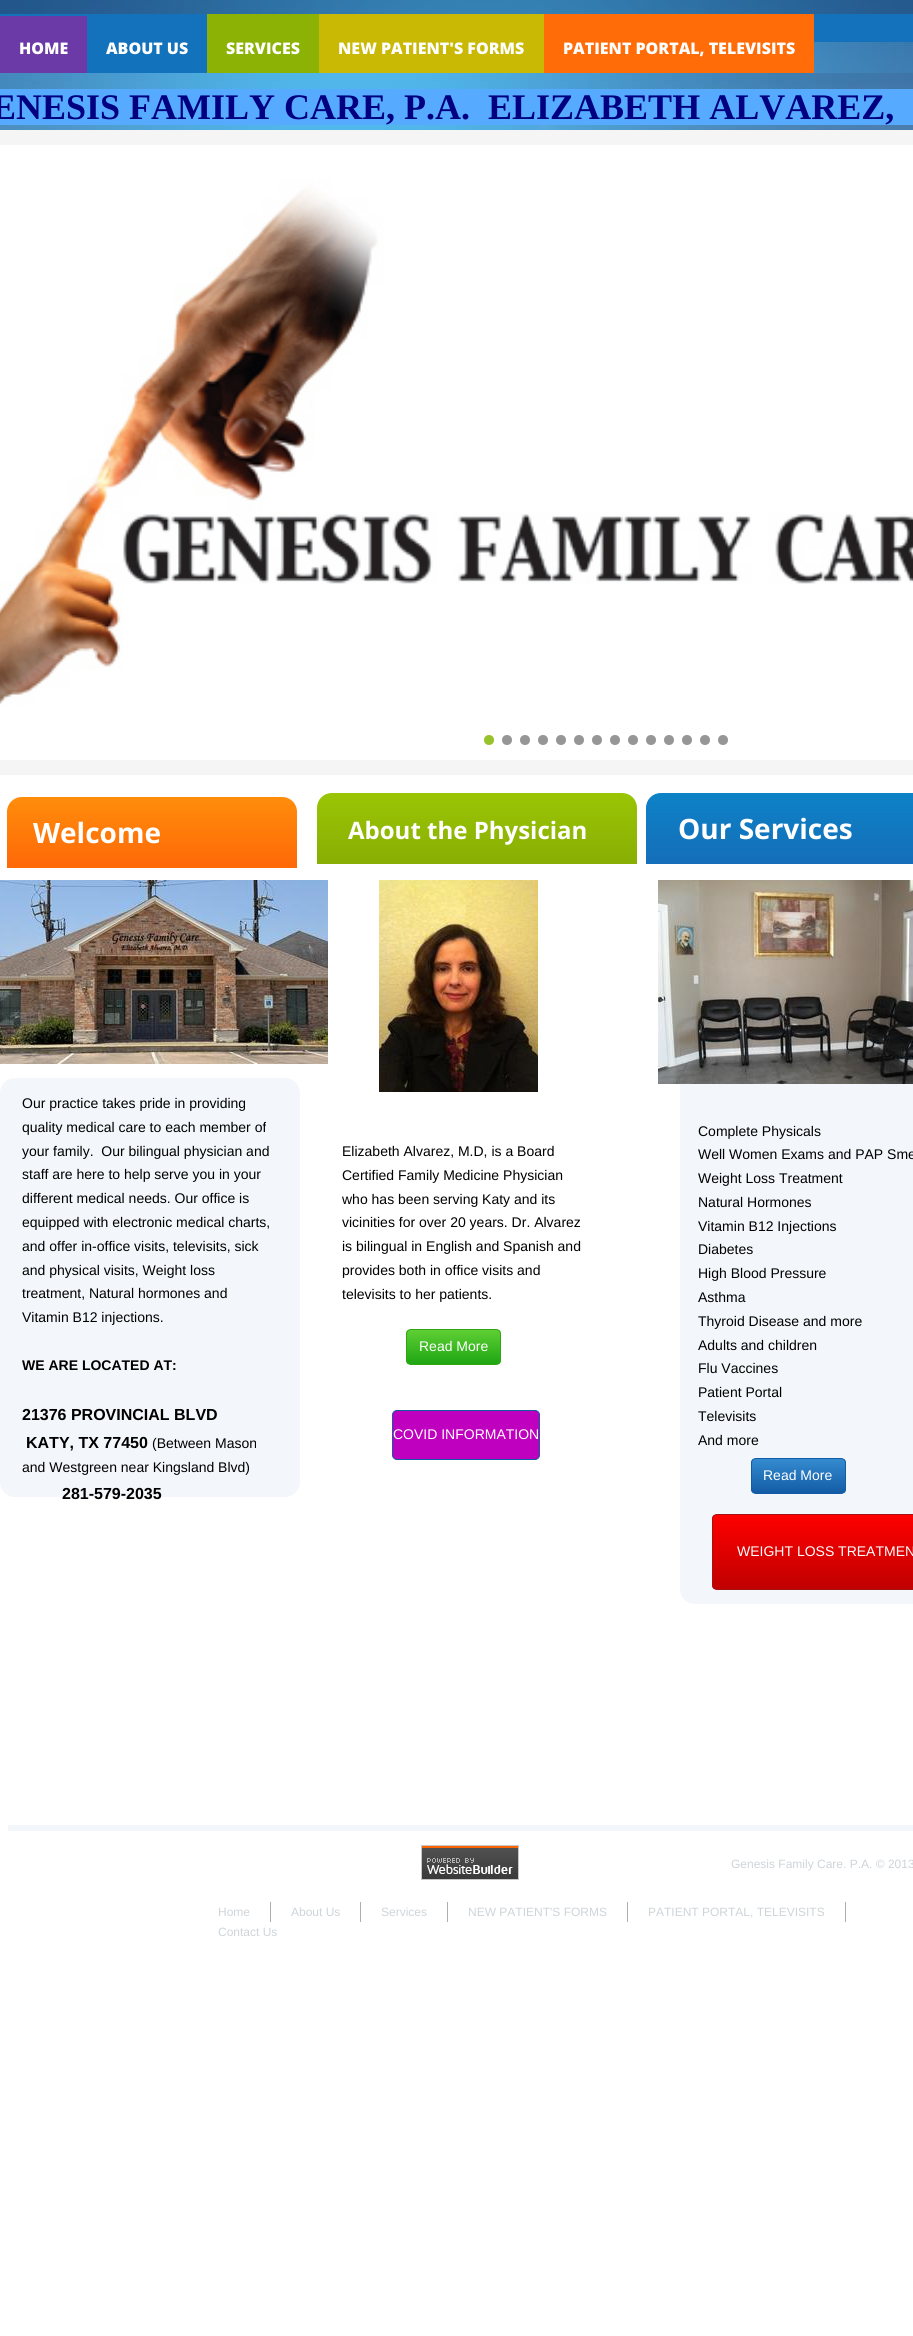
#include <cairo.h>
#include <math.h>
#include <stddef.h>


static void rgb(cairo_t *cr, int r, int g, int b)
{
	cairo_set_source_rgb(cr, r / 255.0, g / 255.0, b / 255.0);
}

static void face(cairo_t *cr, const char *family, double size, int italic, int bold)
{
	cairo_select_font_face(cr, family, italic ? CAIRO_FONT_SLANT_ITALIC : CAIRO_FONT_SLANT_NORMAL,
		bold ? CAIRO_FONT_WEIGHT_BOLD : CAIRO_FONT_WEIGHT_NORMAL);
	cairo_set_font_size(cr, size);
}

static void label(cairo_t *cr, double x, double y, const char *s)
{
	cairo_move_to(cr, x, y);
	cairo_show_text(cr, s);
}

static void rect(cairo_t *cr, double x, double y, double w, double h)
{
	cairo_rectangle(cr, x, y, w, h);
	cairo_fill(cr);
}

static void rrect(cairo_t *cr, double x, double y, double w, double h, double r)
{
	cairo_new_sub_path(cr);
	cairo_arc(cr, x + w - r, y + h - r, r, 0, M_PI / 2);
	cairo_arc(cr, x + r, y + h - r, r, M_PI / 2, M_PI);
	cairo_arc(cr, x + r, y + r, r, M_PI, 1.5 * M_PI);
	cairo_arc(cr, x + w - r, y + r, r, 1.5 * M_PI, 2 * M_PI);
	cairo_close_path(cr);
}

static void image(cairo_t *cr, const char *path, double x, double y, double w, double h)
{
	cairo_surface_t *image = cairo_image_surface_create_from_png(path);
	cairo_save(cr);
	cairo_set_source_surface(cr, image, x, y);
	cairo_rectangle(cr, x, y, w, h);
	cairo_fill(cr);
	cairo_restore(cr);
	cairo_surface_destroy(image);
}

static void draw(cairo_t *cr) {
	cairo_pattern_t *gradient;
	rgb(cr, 255, 255, 255);
	cairo_paint(cr);
	image(cr, "image0.png", 0, 0, 913, 73);
	rgb(cr, 20, 113, 188);
	rect(cr, 0, 14, 913, 28);
	rgb(cr, 107, 58, 167);
	cairo_new_path(cr);
	cairo_move_to(cr, 0, 16);
	cairo_line_to(cr, 87, 16);
	cairo_line_to(cr, 87, 81);
	cairo_line_to(cr, 10, 81);
	cairo_curve_to(cr, 4, 81, 0, 80, 0, 78);
	cairo_close_path(cr);
	cairo_fill(cr);
	face(cr, "Open Sans ExtraBold", 16, 0, 0);
	rgb(cr, 255, 255, 255);
	label(cr, 19, 54, "HOME");
	rgb(cr, 19, 114, 188);
	rect(cr, 87, 42, 120, 31);
	rgb(cr, 255, 255, 255);
	label(cr, 106, 54, "ABOUT US");
	rgb(cr, 139, 178, 4);
	rect(cr, 207, 14, 112, 59);
	rgb(cr, 255, 255, 255);
	label(cr, 226, 54, "SERVICES");
	rgb(cr, 201, 185, 4);
	rect(cr, 319, 14, 225, 59);
	rgb(cr, 255, 255, 255);
	label(cr, 338, 54, "NEW PATIENT'S FORMS");
	rgb(cr, 255, 108, 8);
	rect(cr, 544, 14, 270, 59);
	rgb(cr, 255, 255, 255);
	label(cr, 563, 54, "PATIENT PORTAL, TELEVISITS");
	image(cr, "image1.png", 0, 73, 913, 57);
	rgb(cr, 86, 170, 255);
	rect(cr, 0, 89, 913, 36);
	face(cr, "Liberation Serif", 36, 0, 1);
	rgb(cr, 0, 0, 128);
	label(cr, -8, 119, "ENESIS FAMILY CARE, P.A.  ELIZABETH ALVAREZ,");
	cairo_rectangle(cr, -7.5, 137.5, 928, 630);
	rgb(cr, 245, 245, 245);
	cairo_set_line_width(cr, 15);
	cairo_stroke(cr);
	image(cr, "image2.png", 0, 145, 913, 615);
	rgb(cr, 152, 194, 42);
	cairo_arc(cr, 489, 740, 5, 0, 2 * M_PI);
	cairo_fill(cr);
	rgb(cr, 150, 150, 150);
	cairo_arc(cr, 507, 740, 5, 0, 2 * M_PI);
	cairo_fill(cr);
	cairo_arc(cr, 525, 740, 5, 0, 2 * M_PI);
	cairo_fill(cr);
	cairo_arc(cr, 543, 740, 5, 0, 2 * M_PI);
	cairo_fill(cr);
	cairo_arc(cr, 561, 740, 5, 0, 2 * M_PI);
	cairo_fill(cr);
	cairo_arc(cr, 579, 740, 5, 0, 2 * M_PI);
	cairo_fill(cr);
	cairo_arc(cr, 597, 740, 5, 0, 2 * M_PI);
	cairo_fill(cr);
	cairo_arc(cr, 615, 740, 5, 0, 2 * M_PI);
	cairo_fill(cr);
	cairo_arc(cr, 633, 740, 5, 0, 2 * M_PI);
	cairo_fill(cr);
	cairo_arc(cr, 651, 740, 5, 0, 2 * M_PI);
	cairo_fill(cr);
	cairo_arc(cr, 669, 740, 5, 0, 2 * M_PI);
	cairo_fill(cr);
	cairo_arc(cr, 687, 740, 5, 0, 2 * M_PI);
	cairo_fill(cr);
	cairo_arc(cr, 705, 740, 5, 0, 2 * M_PI);
	cairo_fill(cr);
	cairo_arc(cr, 723, 740, 5, 0, 2 * M_PI);
	cairo_fill(cr);
	gradient = cairo_pattern_create_linear(152, 797, 152, 868);
	cairo_pattern_add_color_stop_rgba(gradient, 0, 1, 0.553, 0.043, 1);
	cairo_pattern_add_color_stop_rgba(gradient, 1, 1, 0.408, 0.031, 1);
	cairo_set_source(cr, gradient);
	cairo_pattern_destroy(gradient);
	cairo_new_path(cr);
	cairo_move_to(cr, 22, 797);
	cairo_line_to(cr, 282, 797);
	cairo_curve_to(cr, 290.5, 797, 297, 803.5, 297, 812);
	cairo_line_to(cr, 297, 868);
	cairo_line_to(cr, 7, 868);
	cairo_line_to(cr, 7, 812);
	cairo_curve_to(cr, 7, 803.5, 13.5, 797, 22, 797);
	cairo_close_path(cr);
	cairo_fill(cr);
	gradient = cairo_pattern_create_linear(477, 793, 477, 864);
	cairo_pattern_add_color_stop_rgba(gradient, 0, 0.604, 0.773, 0.016, 1);
	cairo_pattern_add_color_stop_rgba(gradient, 1, 0.537, 0.682, 0.016, 1);
	cairo_set_source(cr, gradient);
	cairo_pattern_destroy(gradient);
	cairo_new_path(cr);
	cairo_move_to(cr, 332, 793);
	cairo_line_to(cr, 622, 793);
	cairo_curve_to(cr, 630.5, 793, 637, 799.5, 637, 808);
	cairo_line_to(cr, 637, 864);
	cairo_line_to(cr, 317, 864);
	cairo_line_to(cr, 317, 808);
	cairo_curve_to(cr, 317, 799.5, 323.5, 793, 332, 793);
	cairo_close_path(cr);
	cairo_fill(cr);
	gradient = cairo_pattern_create_linear(807, 793, 807, 864);
	cairo_pattern_add_color_stop_rgba(gradient, 0, 0.051, 0.51, 0.776, 1);
	cairo_pattern_add_color_stop_rgba(gradient, 1, 0.082, 0.431, 0.729, 1);
	cairo_set_source(cr, gradient);
	cairo_pattern_destroy(gradient);
	cairo_new_path(cr);
	cairo_move_to(cr, 661, 793);
	cairo_line_to(cr, 913, 793);
	cairo_line_to(cr, 913, 864);
	cairo_line_to(cr, 646, 864);
	cairo_line_to(cr, 646, 808);
	cairo_curve_to(cr, 646, 799.5, 652.5, 793, 661, 793);
	cairo_close_path(cr);
	cairo_fill(cr);
	face(cr, "Open Sans", 28, 0, 1);
	rgb(cr, 255, 255, 255);
	label(cr, 33, 843, "Welcome");
	face(cr, "Open Sans", 24, 0, 1);
	label(cr, 348, 839, "About the Physician");
	face(cr, "Open Sans", 28, 0, 1);
	label(cr, 678, 839, "Our Services");
	image(cr, "image3.png", 0, 880, 328, 184);
	image(cr, "image4.png", 379, 880, 159, 212);
	rgb(cr, 243, 246, 250);
	cairo_new_path(cr);
	cairo_move_to(cr, 695, 1073);
	cairo_line_to(cr, 913, 1073);
	cairo_line_to(cr, 913, 1604);
	cairo_line_to(cr, 695, 1604);
	cairo_curve_to(cr, 686.5, 1604, 680, 1597.5, 680, 1589);
	cairo_line_to(cr, 680, 1088);
	cairo_curve_to(cr, 680, 1079.5, 686.5, 1073, 695, 1073);
	cairo_close_path(cr);
	cairo_fill(cr);
	image(cr, "image5.png", 658, 880, 255, 204);
	rrect(cr, 0, 1078, 300, 419, 15);
	cairo_fill(cr);
	face(cr, "Liberation Sans", 14, 0, 0);
	rgb(cr, 0, 0, 0);
	label(cr, 22, 1108, "Our practice takes pride in providing");
	label(cr, 22, 1132, "quality medical care to each member of");
	label(cr, 22, 1156, "your family.  Our bilingual physician and");
	label(cr, 22, 1179, "staff are here to help serve you in your");
	label(cr, 22, 1203, "different medical needs. Our office is");
	label(cr, 22, 1227, "equipped with electronic medical charts,");
	label(cr, 22, 1251, "and offer in-office visits, televisits, sick");
	label(cr, 22, 1275, "and physical visits, Weight loss");
	label(cr, 22, 1298, "treatment, Natural hormones and");
	label(cr, 22, 1322, "Vitamin B12 injections.");
	face(cr, "Liberation Sans", 14, 0, 1);
	label(cr, 22, 1370, "WE ARE LOCATED AT:");
	face(cr, "Liberation Sans", 16, 0, 1);
	label(cr, 22, 1420, "21376 PROVINCIAL BLVD");
	label(cr, 26, 1448, "KATY, TX 77450");
	face(cr, "Liberation Sans", 14, 0, 0);
	label(cr, 152, 1448, "(Between Mason");
	label(cr, 22, 1472, "and Westgreen near Kingsland Blvd)");
	face(cr, "Liberation Sans", 16, 0, 1);
	label(cr, 62, 1499, "281-579-2035");
	face(cr, "Liberation Sans", 14, 0, 0);
	label(cr, 342, 1156, "Elizabeth Alvarez, M.D, is a Board");
	label(cr, 342, 1180, "Certified Family Medicine Physician");
	label(cr, 342, 1204, "who has been serving Katy and its");
	label(cr, 342, 1227, "vicinities for over 20 years. Dr. Alvarez");
	label(cr, 342, 1251, "is bilingual in English and Spanish and");
	label(cr, 342, 1275, "provides both in office visits and");
	label(cr, 342, 1299, "televisits to her patients.");
	label(cr, 698, 1136, "Complete Physicals");
	label(cr, 698, 1159, "Well Women Exams and PAP Sme");
	label(cr, 698, 1183, "Weight Loss Treatment");
	label(cr, 698, 1207, "Natural Hormones");
	label(cr, 698, 1231, "Vitamin B12 Injections");
	label(cr, 698, 1254, "Diabetes");
	label(cr, 698, 1278, "High Blood Pressure");
	label(cr, 698, 1302, "Asthma");
	label(cr, 698, 1326, "Thyroid Disease and more");
	label(cr, 698, 1350, "Adults and children");
	label(cr, 698, 1373, "Flu Vaccines");
	label(cr, 698, 1397, "Patient Portal");
	label(cr, 698, 1421, "Televisits");
	label(cr, 698, 1445, "And more");
	cairo_save(cr);
	rrect(cr, 406, 1329, 95, 36, 5);
	cairo_clip(cr);
	gradient = cairo_pattern_create_linear(454, 1330, 454, 1364);
	cairo_pattern_add_color_stop_rgba(gradient, 0, 0.373, 0.812, 0.204, 1);
	cairo_pattern_add_color_stop_rgba(gradient, 1, 0.118, 0.651, 0.071, 1);
	cairo_set_source(cr, gradient);
	cairo_pattern_destroy(gradient);
	rect(cr, 406, 1330, 95, 34);
	cairo_restore(cr);
	rrect(cr, 406.5, 1329.5, 94, 35, 4.5);
	rgb(cr, 48, 166, 18);
	cairo_set_line_width(cr, 1);
	cairo_stroke(cr);
	rgb(cr, 255, 255, 255);
	label(cr, 419, 1351, "Read More");
	rgb(cr, 191, 0, 191);
	rrect(cr, 392.5, 1410.5, 147, 49, 4.5);
	cairo_fill_preserve(cr);
	rgb(cr, 18, 92, 166);
	cairo_stroke(cr);
	rgb(cr, 255, 255, 255);
	label(cr, 393, 1439, "COVID INFORMATION");
	cairo_save(cr);
	rrect(cr, 751, 1458, 95, 36, 5);
	cairo_clip(cr);
	gradient = cairo_pattern_create_linear(799, 1459, 799, 1493);
	cairo_pattern_add_color_stop_rgba(gradient, 0, 0.204, 0.545, 0.812, 1);
	cairo_pattern_add_color_stop_rgba(gradient, 1, 0.071, 0.361, 0.651, 1);
	cairo_set_source(cr, gradient);
	cairo_pattern_destroy(gradient);
	rect(cr, 751, 1459, 95, 34);
	cairo_restore(cr);
	rrect(cr, 751.5, 1458.5, 94, 35, 4.5);
	rgb(cr, 18, 92, 166);
	cairo_stroke(cr);
	rgb(cr, 255, 255, 255);
	label(cr, 763, 1480, "Read More");
	cairo_save(cr);
	rrect(cr, 712, 1514, 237, 76, 5);
	cairo_clip(cr);
	gradient = cairo_pattern_create_linear(831, 1515, 831, 1589);
	cairo_pattern_add_color_stop_rgba(gradient, 0, 1, 0, 0, 1);
	cairo_pattern_add_color_stop_rgba(gradient, 1, 0.753, 0, 0, 1);
	cairo_set_source(cr, gradient);
	cairo_pattern_destroy(gradient);
	rect(cr, 712, 1515, 201, 74);
	cairo_restore(cr);
	rrect(cr, 712.5, 1514.5, 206, 75, 4.5);
	rgb(cr, 166, 18, 18);
	cairo_stroke(cr);
	rgb(cr, 255, 255, 255);
	label(cr, 737, 1556, "WEIGHT LOSS TREATMEN");
	rgb(cr, 243, 246, 250);
	rect(cr, 8, 1825, 905, 6);
	image(cr, "image6.png", 421, 1845, 98, 35);
	face(cr, "Liberation Sans", 12, 0, 0);
	rgb(cr, 206, 212, 216);
	label(cr, 731, 1868, "Genesis Family Care. P.A. © 2013");
	rgb(cr, 174, 174, 174);
	rect(cr, 270, 1902, 1, 20);
	rgb(cr, 206, 212, 216);
	label(cr, 218, 1916, "Home");
	rgb(cr, 174, 174, 174);
	rect(cr, 360, 1902, 1, 20);
	rgb(cr, 206, 212, 216);
	label(cr, 291, 1916, "About Us");
	rgb(cr, 174, 174, 174);
	rect(cr, 447, 1902, 1, 20);
	rgb(cr, 206, 212, 216);
	label(cr, 381, 1916, "Services");
	rgb(cr, 174, 174, 174);
	rect(cr, 627, 1902, 1, 20);
	rgb(cr, 206, 212, 216);
	label(cr, 468, 1916, "NEW PATIENT'S FORMS");
	rgb(cr, 174, 174, 174);
	rect(cr, 845, 1902, 1, 20);
	rgb(cr, 206, 212, 216);
	label(cr, 648, 1916, "PATIENT PORTAL, TELEVISITS");
	label(cr, 218, 1936, "Contact Us");
}

int main(void) {
	cairo_surface_t *surface = cairo_image_surface_create(CAIRO_FORMAT_RGB24, 913, 2336);
	cairo_t *cr = cairo_create(surface);
	cairo_font_options_t *options = cairo_font_options_create();
	cairo_font_options_set_hint_metrics(options, CAIRO_HINT_METRICS_OFF);
	cairo_font_options_set_hint_style(options, CAIRO_HINT_STYLE_NONE);
	cairo_set_font_options(cr, options);
	cairo_set_miter_limit(cr, 4);
	draw(cr);
	cairo_surface_write_to_png(surface, "render.png");
	cairo_font_options_destroy(options);
	cairo_destroy(cr);
	cairo_surface_destroy(surface);
	return 0;
}
